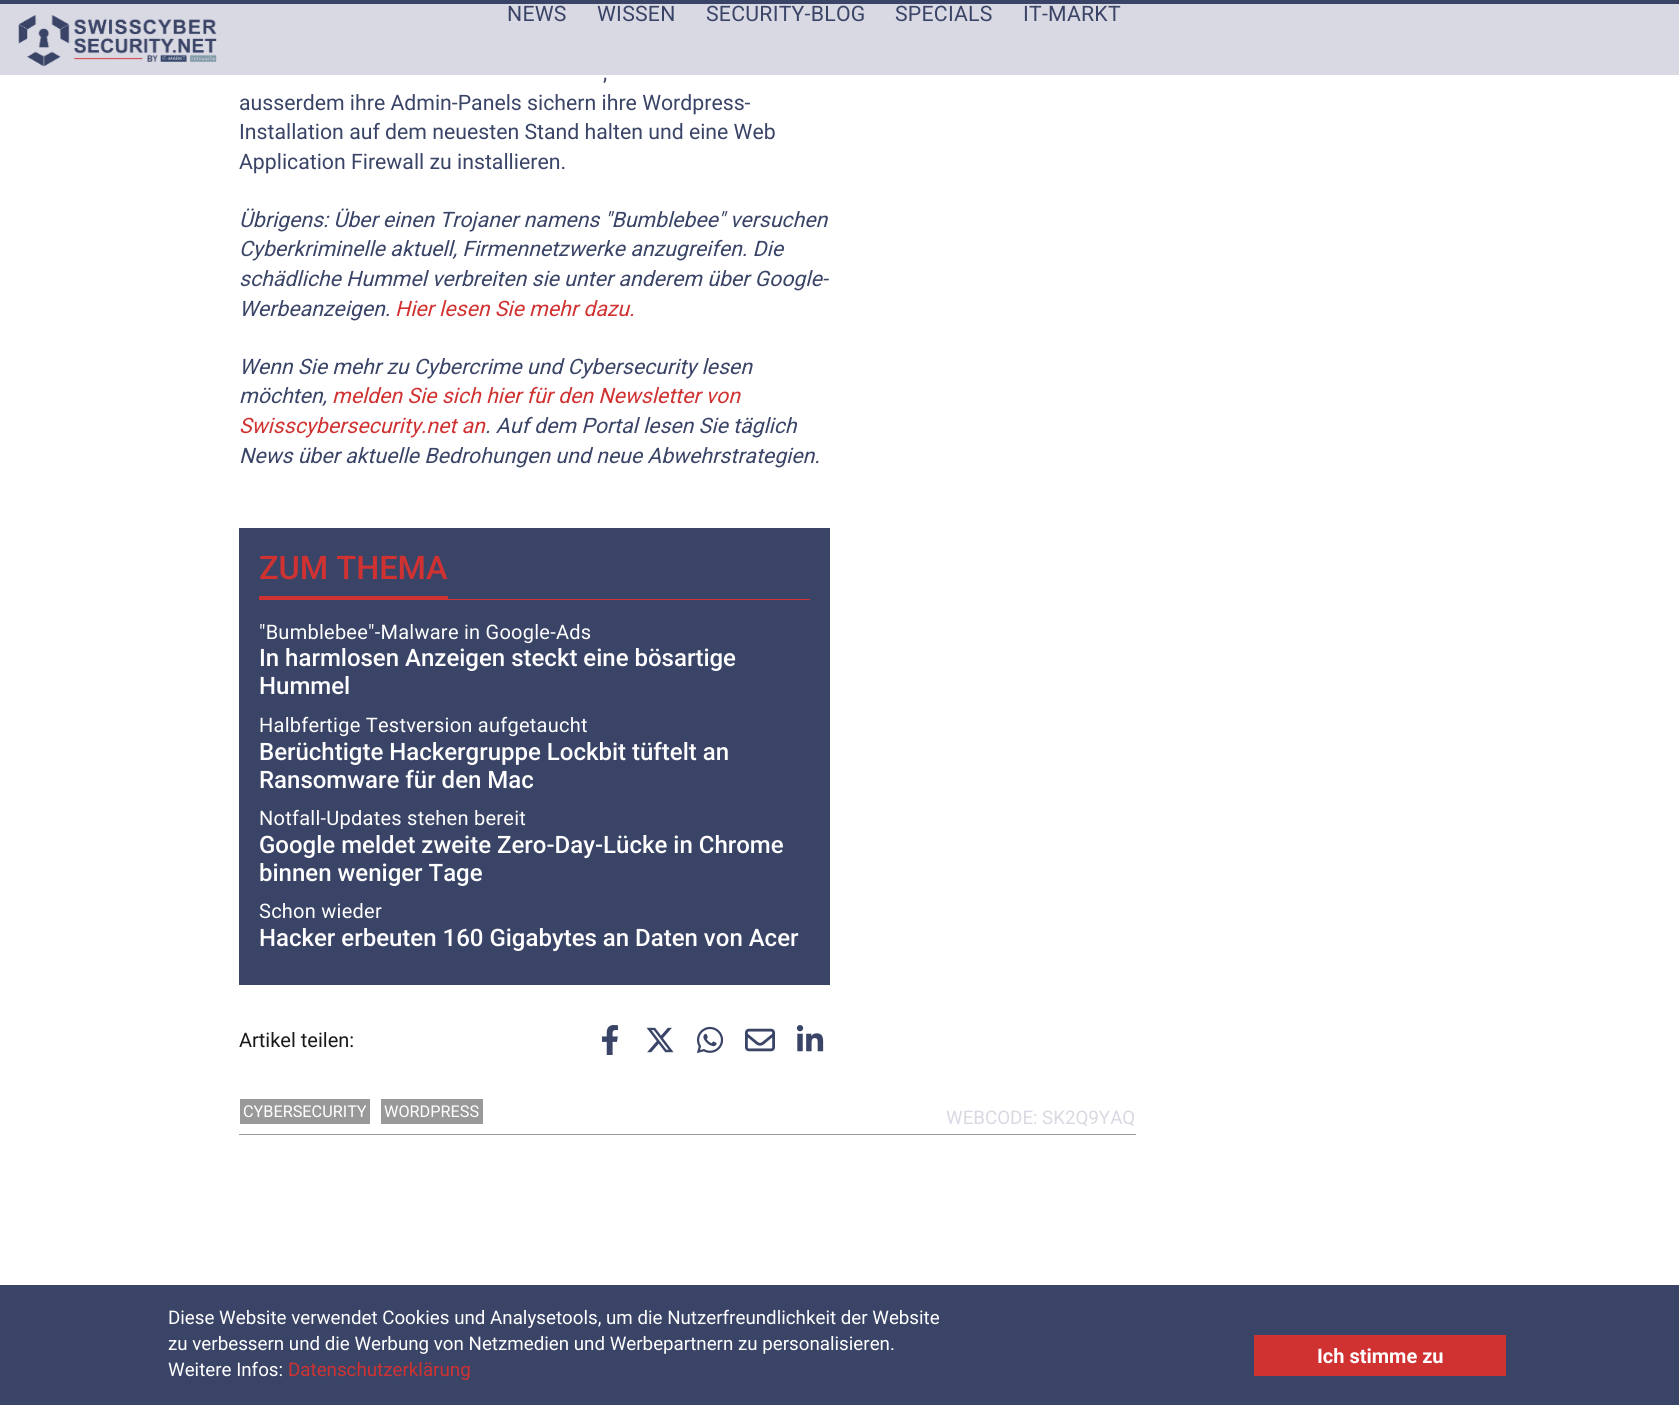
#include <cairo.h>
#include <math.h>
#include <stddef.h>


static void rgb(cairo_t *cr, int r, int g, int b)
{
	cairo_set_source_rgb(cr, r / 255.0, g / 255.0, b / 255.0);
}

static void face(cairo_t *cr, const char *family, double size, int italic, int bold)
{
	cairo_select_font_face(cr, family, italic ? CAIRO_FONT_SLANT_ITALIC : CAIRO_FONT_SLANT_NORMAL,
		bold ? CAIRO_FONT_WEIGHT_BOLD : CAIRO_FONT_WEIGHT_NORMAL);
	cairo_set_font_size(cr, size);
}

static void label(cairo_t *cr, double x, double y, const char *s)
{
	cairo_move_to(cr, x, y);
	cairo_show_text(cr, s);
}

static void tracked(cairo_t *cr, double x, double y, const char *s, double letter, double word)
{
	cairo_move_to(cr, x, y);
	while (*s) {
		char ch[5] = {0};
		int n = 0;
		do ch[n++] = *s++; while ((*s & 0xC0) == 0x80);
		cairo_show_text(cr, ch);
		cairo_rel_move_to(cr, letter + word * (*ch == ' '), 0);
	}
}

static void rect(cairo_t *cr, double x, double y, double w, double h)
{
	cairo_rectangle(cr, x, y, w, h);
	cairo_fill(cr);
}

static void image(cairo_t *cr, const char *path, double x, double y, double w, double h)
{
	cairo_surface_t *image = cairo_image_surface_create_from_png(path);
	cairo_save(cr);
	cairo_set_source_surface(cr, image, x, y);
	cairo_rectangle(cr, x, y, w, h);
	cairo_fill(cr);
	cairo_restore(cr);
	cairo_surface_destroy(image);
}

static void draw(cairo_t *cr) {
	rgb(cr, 255, 255, 255);
	cairo_paint(cr);
	rgb(cr, 58, 68, 103);
	rect(cr, 0, 0, 1679, 4);
	rgb(cr, 217, 217, 227);
	rect(cr, 0, 4, 1679, 71);
	image(cr, "image0.png", 18, 15, 199, 52);
	face(cr, "Roboto", 21.25, 0, 0);
	rgb(cr, 58, 68, 103);
	tracked(cr, 507, 21, "NEWS", 0.25, 0);
	tracked(cr, 597, 21, "WISSEN", 0.25, 0);
	tracked(cr, 706, 21, "SECURITY-BLOG", 0.25, 0);
	tracked(cr, 895, 21, "SPECIALS", 0.25, 0);
	tracked(cr, 1023, 21, "IT-MARKT", 0.25, 0);
	label(cr, 603, 80, ",");
	label(cr, 239, 110, "ausserdem ihre Admin-Panels sichern ihre Wordpress-");
	label(cr, 239, 139, "Installation auf dem neuesten Stand halten und eine Web");
	label(cr, 239, 169, "Application Firewall zu installieren.");
	face(cr, "Roboto", 21.25, 1, 0);
	label(cr, 239, 227, "Übrigens: Über einen Trojaner namens \"Bumblebee\" versuchen");
	label(cr, 239, 256, "Cyberkriminelle aktuell, Firmennetzwerke anzugreifen. Die");
	label(cr, 239, 286, "schädliche Hummel verbreiten sie unter anderem über Google-");
	label(cr, 239, 316, "Werbeanzeigen.");
	rgb(cr, 208, 50, 50);
	label(cr, 395, 316, "Hier lesen Sie mehr dazu.");
	rgb(cr, 58, 68, 103);
	label(cr, 239, 374, "Wenn Sie mehr zu Cybercrime und Cybersecurity lesen");
	label(cr, 239, 403, "möchten,");
	rgb(cr, 208, 50, 50);
	label(cr, 332, 403, "melden Sie sich hier für den Newsletter von");
	label(cr, 239, 433, "Swisscybersecurity.net an");
	rgb(cr, 58, 68, 103);
	label(cr, 485, 433, ". Auf dem Portal lesen Sie täglich");
	label(cr, 239, 463, "News über aktuelle Bedrohungen und neue Abwehrstrategien.");
	rect(cr, 239, 528, 591, 457);
	rgb(cr, 208, 50, 50);
	rect(cr, 259, 596, 189, 3);
	face(cr, "Roboto Medium", 32.5, 0, 0);
	label(cr, 259, 579, "ZUM THEMA");
	rect(cr, 259, 599, 551, 1);
	face(cr, "Roboto", 20, 0, 0);
	rgb(cr, 255, 255, 255);
	tracked(cr, 259, 639, "\"Bumblebee\"-Malware in Google-Ads", 0.25, 0);
	face(cr, "Roboto Medium", 24, 0, 0);
	label(cr, 259, 666, "In harmlosen Anzeigen steckt eine bösartige");
	label(cr, 259, 694, "Hummel");
	face(cr, "Roboto", 20, 0, 0);
	tracked(cr, 259, 732, "Halbfertige Testversion aufgetaucht", 0.25, 0);
	face(cr, "Roboto Medium", 24, 0, 0);
	label(cr, 259, 760, "Berüchtigte Hackergruppe Lockbit tüftelt an");
	label(cr, 259, 788, "Ransomware für den Mac");
	face(cr, "Roboto", 20, 0, 0);
	tracked(cr, 259, 825, "Notfall-Updates stehen bereit", 0.25, 0);
	face(cr, "Roboto Medium", 24, 0, 0);
	label(cr, 259, 853, "Google meldet zweite Zero-Day-Lücke in Chrome");
	label(cr, 259, 881, "binnen weniger Tage");
	face(cr, "Roboto", 20, 0, 0);
	tracked(cr, 259, 918, "Schon wieder", 0.25, 0);
	face(cr, "Roboto Medium", 24, 0, 0);
	label(cr, 259, 946, "Hacker erbeuten 160 Gigabytes an Daten von Acer");
	face(cr, "Roboto", 20, 0, 0);
	rgb(cr, 25, 25, 23);
	label(cr, 239, 1047, "Artikel teilen:");
	image(cr, "image1.png", 601, 1025, 18, 30);
	image(cr, "image2.png", 646, 1027, 28, 26);
	image(cr, "image3.png", 697, 1026, 27, 27);
	image(cr, "image4.png", 745, 1028, 30, 24);
	image(cr, "image5.png", 796, 1025, 28, 27);
	rgb(cr, 153, 153, 153);
	rect(cr, 240, 1099, 130, 25);
	face(cr, "Roboto", 16.25, 0, 0);
	rgb(cr, 255, 255, 255);
	label(cr, 243, 1117, "CYBERSECURITY");
	rgb(cr, 153, 153, 153);
	rect(cr, 381, 1099, 102, 25);
	rgb(cr, 255, 255, 255);
	label(cr, 384, 1117, "WORDPRESS");
	rgb(cr, 153, 153, 153);
	rect(cr, 239, 1134, 897, 1);
	face(cr, "Roboto", 18.75, 0, 0);
	rgb(cr, 217, 217, 227);
	label(cr, 946, 1124, "WEBCODE:");
	label(cr, 1042, 1124, "SK2Q9YAQ");
	rgb(cr, 58, 68, 103);
	rect(cr, 0, 1285, 1679, 120);
	rgb(cr, 255, 255, 255);
	label(cr, 168, 1324, "Diese Website verwendet Cookies und Analysetools, um die Nutzerfreundlichkeit der Website");
	label(cr, 168, 1350, "zu verbessern und die Werbung von Netzmedien und Werbepartnern zu personalisieren.");
	label(cr, 168, 1376, "Weitere Infos:");
	rgb(cr, 208, 50, 50);
	label(cr, 288, 1376, "Datenschutzerklärung");
	rect(cr, 1254, 1335, 252, 41);
	face(cr, "Roboto", 20, 0, 1);
	rgb(cr, 255, 255, 255);
	label(cr, 1317, 1363, "Ich stimme zu");
}

int main(void) {
	cairo_surface_t *surface = cairo_image_surface_create(CAIRO_FORMAT_RGB24, 1679, 1405);
	cairo_t *cr = cairo_create(surface);
	cairo_font_options_t *options = cairo_font_options_create();
	cairo_font_options_set_hint_metrics(options, CAIRO_HINT_METRICS_OFF);
	cairo_font_options_set_hint_style(options, CAIRO_HINT_STYLE_NONE);
	cairo_set_font_options(cr, options);
	cairo_set_miter_limit(cr, 4);
	draw(cr);
	cairo_surface_write_to_png(surface, "render.png");
	cairo_font_options_destroy(options);
	cairo_destroy(cr);
	cairo_surface_destroy(surface);
	return 0;
}
